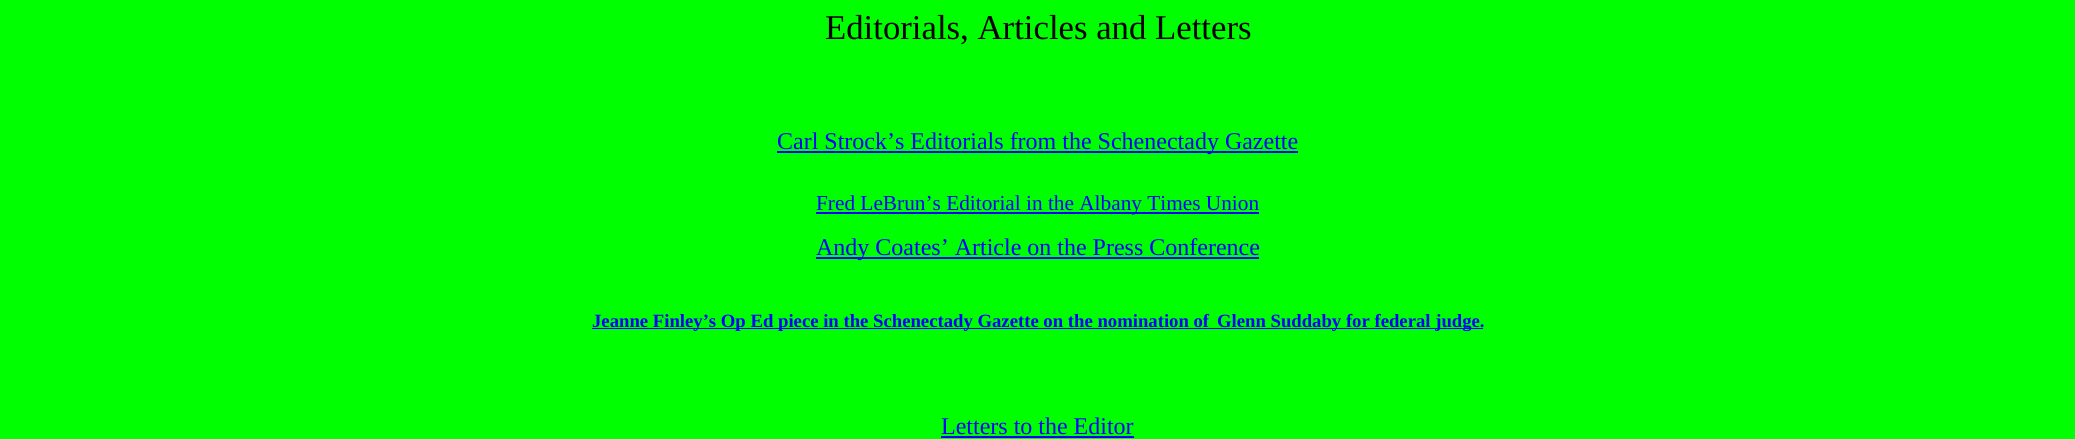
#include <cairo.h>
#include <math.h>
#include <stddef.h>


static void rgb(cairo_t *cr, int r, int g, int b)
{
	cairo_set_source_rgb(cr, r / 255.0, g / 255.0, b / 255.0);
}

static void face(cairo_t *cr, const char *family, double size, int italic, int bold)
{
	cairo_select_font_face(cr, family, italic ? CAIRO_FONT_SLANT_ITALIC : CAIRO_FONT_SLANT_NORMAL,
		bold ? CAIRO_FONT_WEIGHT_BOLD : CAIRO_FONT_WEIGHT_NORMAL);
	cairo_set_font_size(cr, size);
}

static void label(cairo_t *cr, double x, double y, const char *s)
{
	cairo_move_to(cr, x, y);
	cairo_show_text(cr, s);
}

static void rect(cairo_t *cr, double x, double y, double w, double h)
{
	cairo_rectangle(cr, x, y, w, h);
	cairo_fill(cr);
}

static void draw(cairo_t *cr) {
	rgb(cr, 0, 255, 0);
	cairo_paint(cr);
	face(cr, "Liberation Serif", 34.75, 0, 0);
	rgb(cr, 0, 0, 0);
	label(cr, 825, 39, "Editorials, Articles and Letters");
	rgb(cr, 0, 0, 255);
	rect(cr, 777, 151, 521, 2);
	face(cr, "Liberation Serif", 24, 0, 0);
	label(cr, 777, 149, "Carl Strock’s Editorials from the Schenectady Gazette");
	rect(cr, 816, 212, 443, 2);
	face(cr, "Liberation Serif", 21.3, 0, 0);
	label(cr, 816, 210, "Fred LeBrun’s Editorial in the Albany Times Union");
	rect(cr, 816, 257, 443, 2);
	face(cr, "Liberation Serif", 24, 0, 0);
	label(cr, 816, 255, "Andy Coates’ Article on the Press Conference");
	rect(cr, 592, 328, 615, 1);
	face(cr, "Liberation Serif", 18.7, 0, 1);
	label(cr, 592, 327, "Jeanne Finley’s Op Ed piece in the Schenectady Gazette on the nomination of");
	rect(cr, 1207, 328, 276, 1);
	label(cr, 1217, 327, "Glenn Suddaby for federal judge.");
	face(cr, "Liberation Serif", 24, 0, 0);
	label(cr, 941, 434, "Letters to the Editor");
	rect(cr, 941, 436, 193, 2);
}

int main(void) {
	cairo_surface_t *surface = cairo_image_surface_create(CAIRO_FORMAT_RGB24, 2075, 439);
	cairo_t *cr = cairo_create(surface);
	cairo_font_options_t *options = cairo_font_options_create();
	cairo_font_options_set_hint_metrics(options, CAIRO_HINT_METRICS_OFF);
	cairo_font_options_set_hint_style(options, CAIRO_HINT_STYLE_NONE);
	cairo_set_font_options(cr, options);
	cairo_set_miter_limit(cr, 4);
	draw(cr);
	cairo_surface_write_to_png(surface, "render.png");
	cairo_font_options_destroy(options);
	cairo_destroy(cr);
	cairo_surface_destroy(surface);
	return 0;
}
